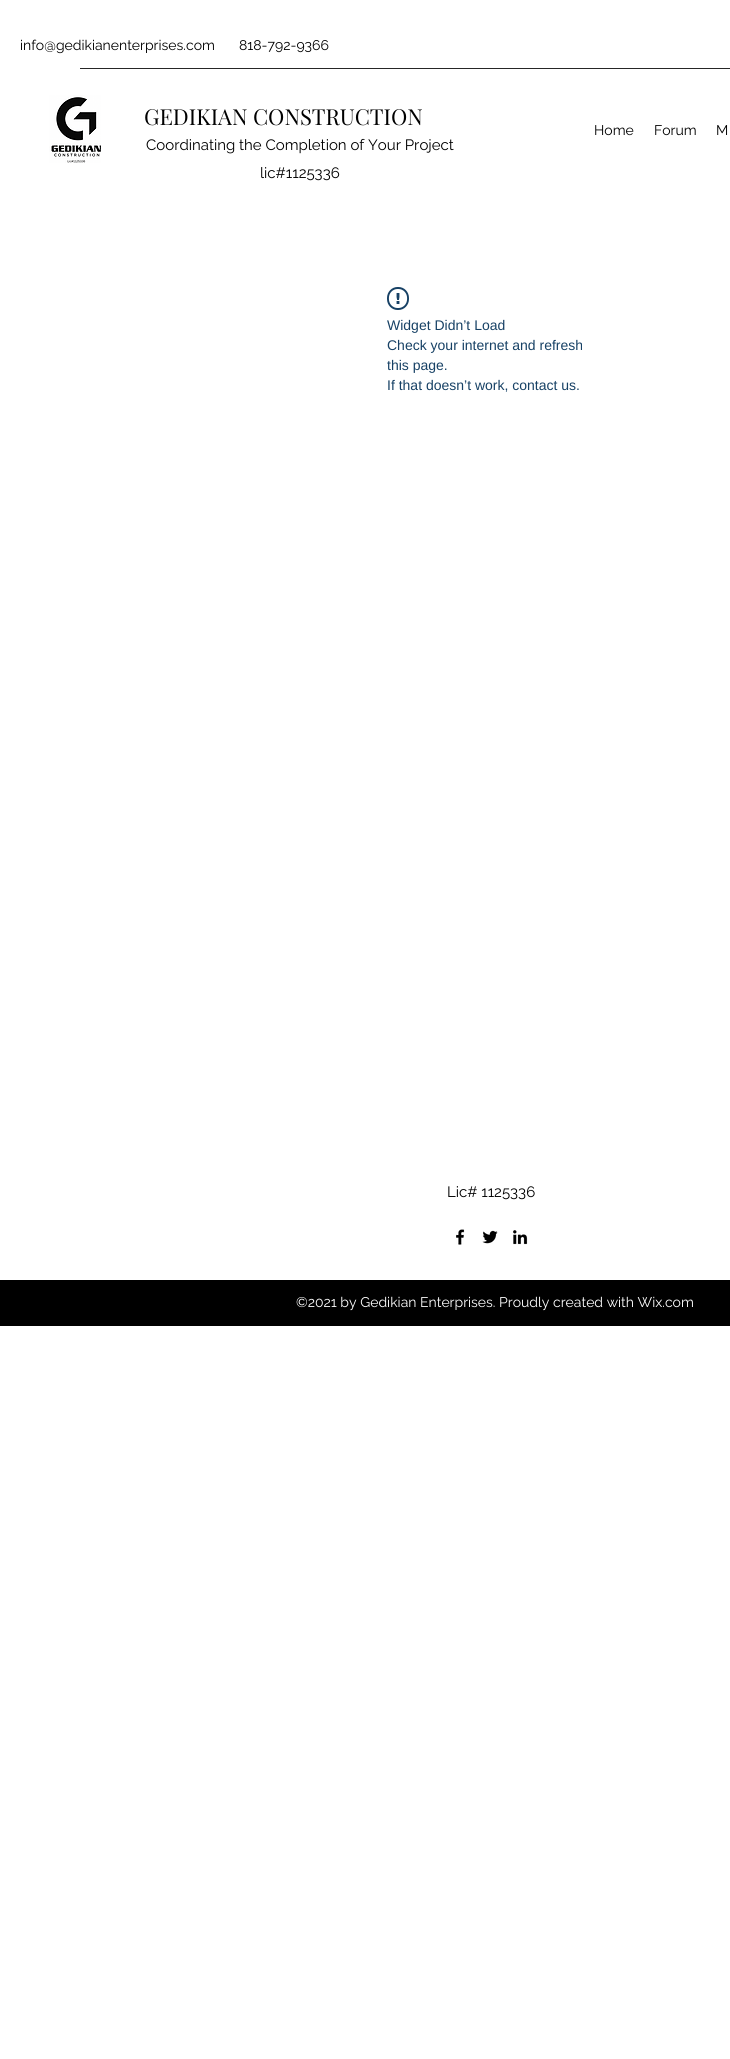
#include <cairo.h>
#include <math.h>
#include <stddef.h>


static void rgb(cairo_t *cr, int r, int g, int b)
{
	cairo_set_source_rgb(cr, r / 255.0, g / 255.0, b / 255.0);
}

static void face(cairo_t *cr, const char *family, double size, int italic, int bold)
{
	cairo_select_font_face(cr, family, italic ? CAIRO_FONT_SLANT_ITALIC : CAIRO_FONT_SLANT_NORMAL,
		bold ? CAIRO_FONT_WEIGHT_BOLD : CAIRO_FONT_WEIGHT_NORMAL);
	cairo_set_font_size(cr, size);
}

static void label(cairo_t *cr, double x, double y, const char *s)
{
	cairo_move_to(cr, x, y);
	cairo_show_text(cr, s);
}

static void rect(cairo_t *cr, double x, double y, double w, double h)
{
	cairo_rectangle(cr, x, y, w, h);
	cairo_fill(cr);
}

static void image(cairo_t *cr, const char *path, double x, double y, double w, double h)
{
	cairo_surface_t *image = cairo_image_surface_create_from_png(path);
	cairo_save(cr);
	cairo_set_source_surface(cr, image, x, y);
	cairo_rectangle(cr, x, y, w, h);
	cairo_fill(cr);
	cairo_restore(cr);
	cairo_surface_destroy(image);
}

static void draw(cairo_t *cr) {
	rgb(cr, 255, 255, 255);
	cairo_paint(cr);
	face(cr, "Raleway", 14, 0, 0);
	rgb(cr, 0, 0, 0);
	label(cr, 20, 50, "info@gedikianenterprises.com");
	label(cr, 239, 50, "818-792-9366");
	rgb(cr, 38, 38, 38);
	rect(cr, 80, 68, 650, 1);
	image(cr, "image0.png", 49, 95, 52, 68);
	face(cr, "Playfair Display", 22, 0, 0);
	rgb(cr, 0, 0, 0);
	label(cr, 144, 125, "GEDIKIAN CONSTRUCTION");
	face(cr, "Raleway", 15, 0, 0);
	label(cr, 146, 150, "Coordinating the Completion of Your Project");
	label(cr, 260, 178, "lic#1125336");
	face(cr, "Raleway", 14, 0, 0);
	label(cr, 594, 135, "Home");
	label(cr, 654, 135, "Forum");
	label(cr, 716, 135, "M");
	image(cr, "image1.png", 387, 287, 22, 23);
	face(cr, "Liberation Sans", 14, 0, 0);
	rgb(cr, 23, 65, 101);
	label(cr, 387, 330, "Widget Didn’t Load");
	label(cr, 387, 350, "Check your internet and refresh");
	label(cr, 387, 370, "this page.");
	label(cr, 387, 390, "If that doesn’t work, contact us.");
	face(cr, "Raleway", 15, 0, 0);
	rgb(cr, 0, 0, 0);
	label(cr, 447, 1197, "Lic# 1125336");
	image(cr, "image2.png", 456, 1229, 9, 16);
	image(cr, "image3.png", 482, 1230, 16, 14);
	image(cr, "image4.png", 513, 1230, 15, 15);
	rect(cr, 0, 1280, 730, 46);
	face(cr, "Raleway", 14, 0, 0);
	rgb(cr, 255, 255, 255);
	label(cr, 296, 1307, "©2021 by Gedikian Enterprises. Proudly created with Wix.com");
}

int main(void) {
	cairo_surface_t *surface = cairo_image_surface_create(CAIRO_FORMAT_RGB24, 730, 2059);
	cairo_t *cr = cairo_create(surface);
	cairo_font_options_t *options = cairo_font_options_create();
	cairo_font_options_set_hint_metrics(options, CAIRO_HINT_METRICS_OFF);
	cairo_font_options_set_hint_style(options, CAIRO_HINT_STYLE_NONE);
	cairo_set_font_options(cr, options);
	cairo_set_miter_limit(cr, 4);
	draw(cr);
	cairo_surface_write_to_png(surface, "render.png");
	cairo_font_options_destroy(options);
	cairo_destroy(cr);
	cairo_surface_destroy(surface);
	return 0;
}
